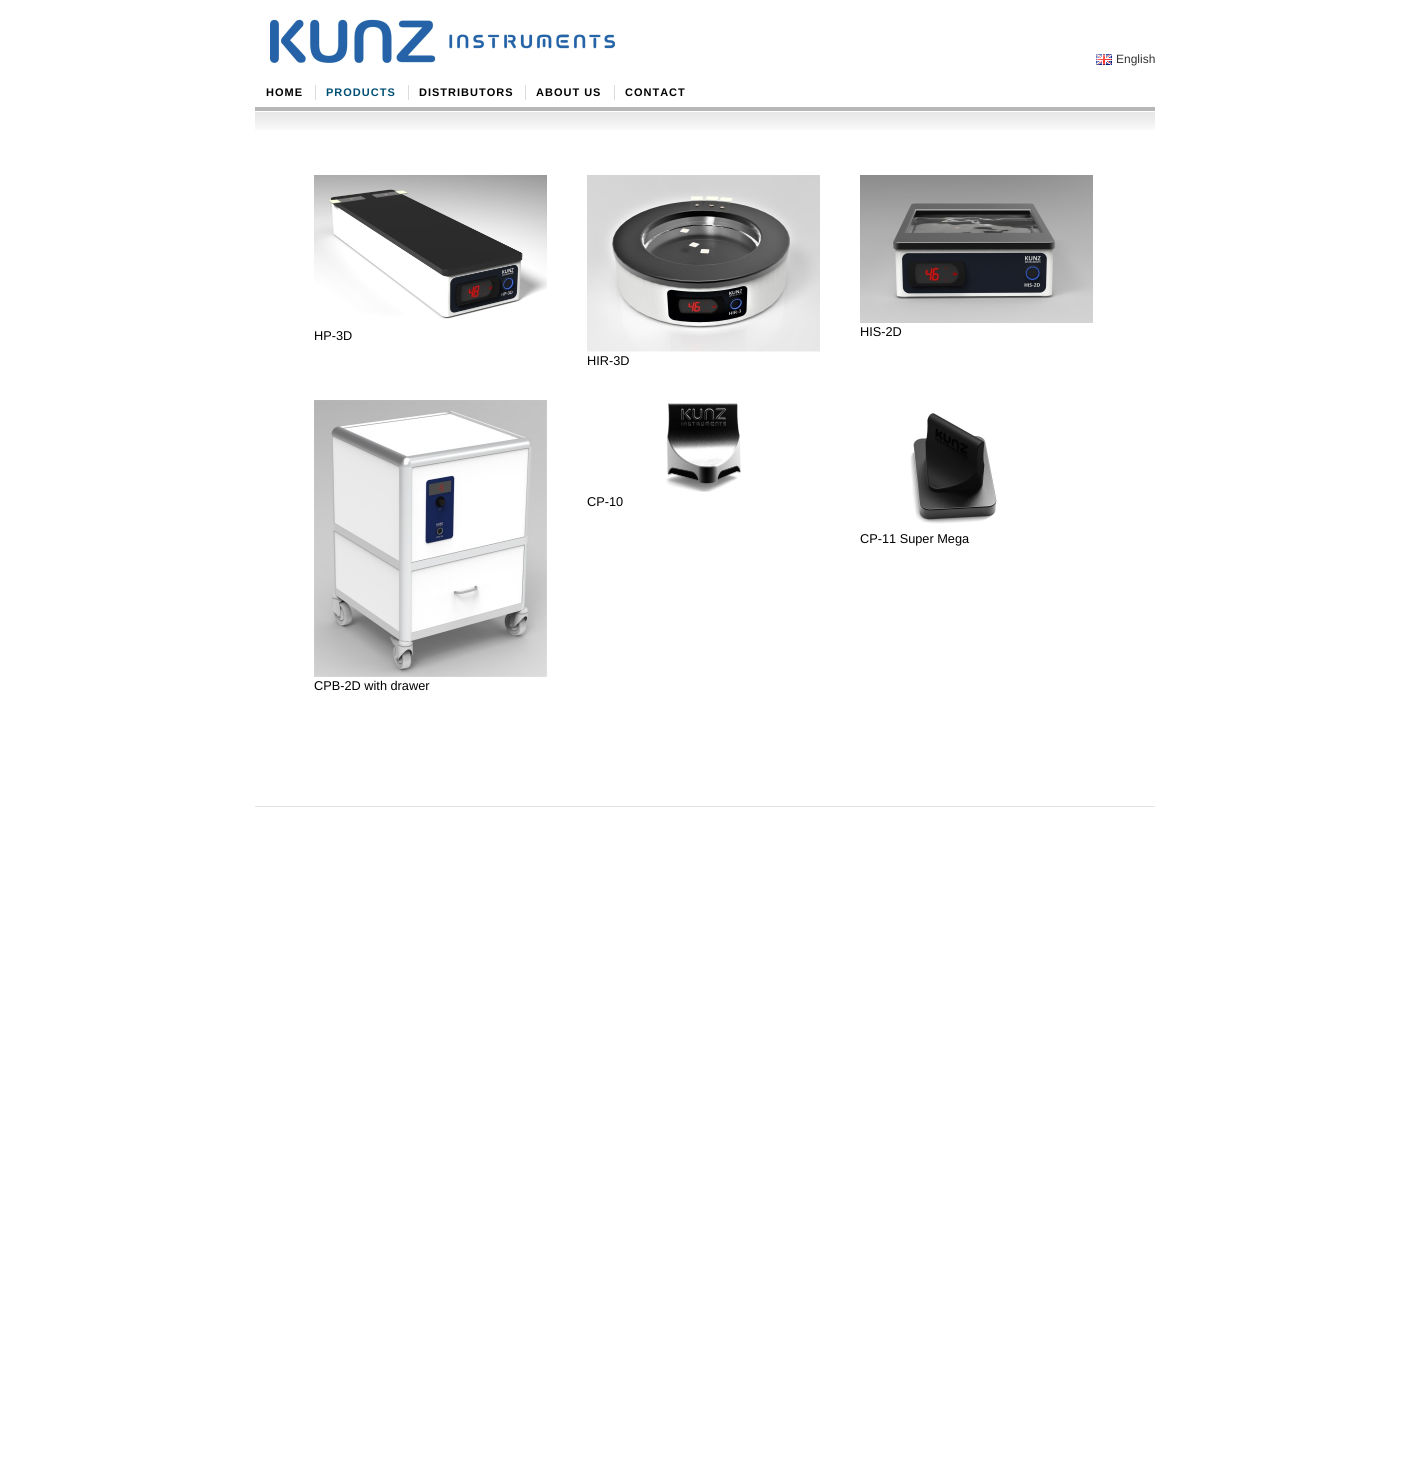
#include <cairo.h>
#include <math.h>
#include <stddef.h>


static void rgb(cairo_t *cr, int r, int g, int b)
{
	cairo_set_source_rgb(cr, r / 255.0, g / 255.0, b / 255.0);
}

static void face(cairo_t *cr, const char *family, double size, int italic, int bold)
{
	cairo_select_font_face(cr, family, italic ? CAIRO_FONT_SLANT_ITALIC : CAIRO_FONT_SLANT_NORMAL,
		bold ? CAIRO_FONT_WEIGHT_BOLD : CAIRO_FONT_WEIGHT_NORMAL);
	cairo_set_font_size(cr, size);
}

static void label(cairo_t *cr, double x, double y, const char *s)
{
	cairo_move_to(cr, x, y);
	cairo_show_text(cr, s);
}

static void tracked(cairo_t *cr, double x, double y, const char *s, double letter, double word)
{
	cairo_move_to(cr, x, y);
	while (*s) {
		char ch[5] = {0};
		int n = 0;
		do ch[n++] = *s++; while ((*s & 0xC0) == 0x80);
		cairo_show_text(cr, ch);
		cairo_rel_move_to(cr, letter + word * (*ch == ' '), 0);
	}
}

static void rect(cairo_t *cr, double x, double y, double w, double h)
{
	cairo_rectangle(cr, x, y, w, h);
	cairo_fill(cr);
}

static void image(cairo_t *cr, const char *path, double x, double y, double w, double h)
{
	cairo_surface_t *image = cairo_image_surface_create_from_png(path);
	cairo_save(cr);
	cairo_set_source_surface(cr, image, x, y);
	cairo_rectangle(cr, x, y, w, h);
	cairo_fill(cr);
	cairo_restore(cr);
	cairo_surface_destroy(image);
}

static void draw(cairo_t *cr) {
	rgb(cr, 255, 255, 255);
	cairo_paint(cr);
	image(cr, "image0.png", 270, 19, 345, 44);
	image(cr, "image1.png", 1096, 54, 16, 11);
	face(cr, "Liberation Sans", 12, 0, 0);
	rgb(cr, 51, 51, 51);
	label(cr, 1116, 63, "English");
	face(cr, "Liberation Sans", 11, 0, 1);
	rgb(cr, 0, 0, 0);
	tracked(cr, 266, 96, "HOME", 1, 0);
	rgb(cr, 1, 79, 117);
	tracked(cr, 326, 96, "PRODUCTS", 1, 0);
	rgb(cr, 220, 220, 220);
	rect(cr, 315, 85, 1, 15);
	rgb(cr, 0, 0, 0);
	tracked(cr, 419, 96, "DISTRIBUTORS", 1, 0);
	rgb(cr, 220, 220, 220);
	rect(cr, 408, 85, 1, 15);
	rgb(cr, 0, 0, 0);
	tracked(cr, 536, 96, "ABOUT US", 1, 0);
	rgb(cr, 220, 220, 220);
	rect(cr, 525, 85, 1, 15);
	rgb(cr, 0, 0, 0);
	tracked(cr, 625, 96, "CONTACT", 1, 0);
	rgb(cr, 220, 220, 220);
	rect(cr, 614, 85, 1, 15);
	image(cr, "image2.png", 255, 112, 900, 18);
	rgb(cr, 183, 183, 183);
	rect(cr, 255, 107, 900, 4);
	image(cr, "image3.png", 314, 175, 233, 144);
	face(cr, "Liberation Sans", 12.75, 0, 0);
	rgb(cr, 0, 0, 0);
	label(cr, 314, 340, "HP-3D");
	image(cr, "image4.png", 860, 175, 233, 148);
	label(cr, 860, 336, "HIS-2D");
	image(cr, "image5.png", 587, 175, 233, 177);
	label(cr, 587, 365, "HIR-3D");
	image(cr, "image6.png", 666, 402, 75, 90);
	label(cr, 587, 506, "CP-10");
	image(cr, "image7.png", 910, 413, 87, 111);
	label(cr, 860, 543, "CP-11 Super Mega");
	image(cr, "image8.png", 314, 400, 233, 277);
	label(cr, 314, 690, "CPB-2D with drawer");
	rgb(cr, 227, 227, 227);
	rect(cr, 255, 806, 900, 1);
}

int main(void) {
	cairo_surface_t *surface = cairo_image_surface_create(CAIRO_FORMAT_RGB24, 1410, 1482);
	cairo_t *cr = cairo_create(surface);
	cairo_font_options_t *options = cairo_font_options_create();
	cairo_font_options_set_hint_metrics(options, CAIRO_HINT_METRICS_OFF);
	cairo_font_options_set_hint_style(options, CAIRO_HINT_STYLE_NONE);
	cairo_set_font_options(cr, options);
	cairo_set_miter_limit(cr, 4);
	draw(cr);
	cairo_surface_write_to_png(surface, "render.png");
	cairo_font_options_destroy(options);
	cairo_destroy(cr);
	cairo_surface_destroy(surface);
	return 0;
}
